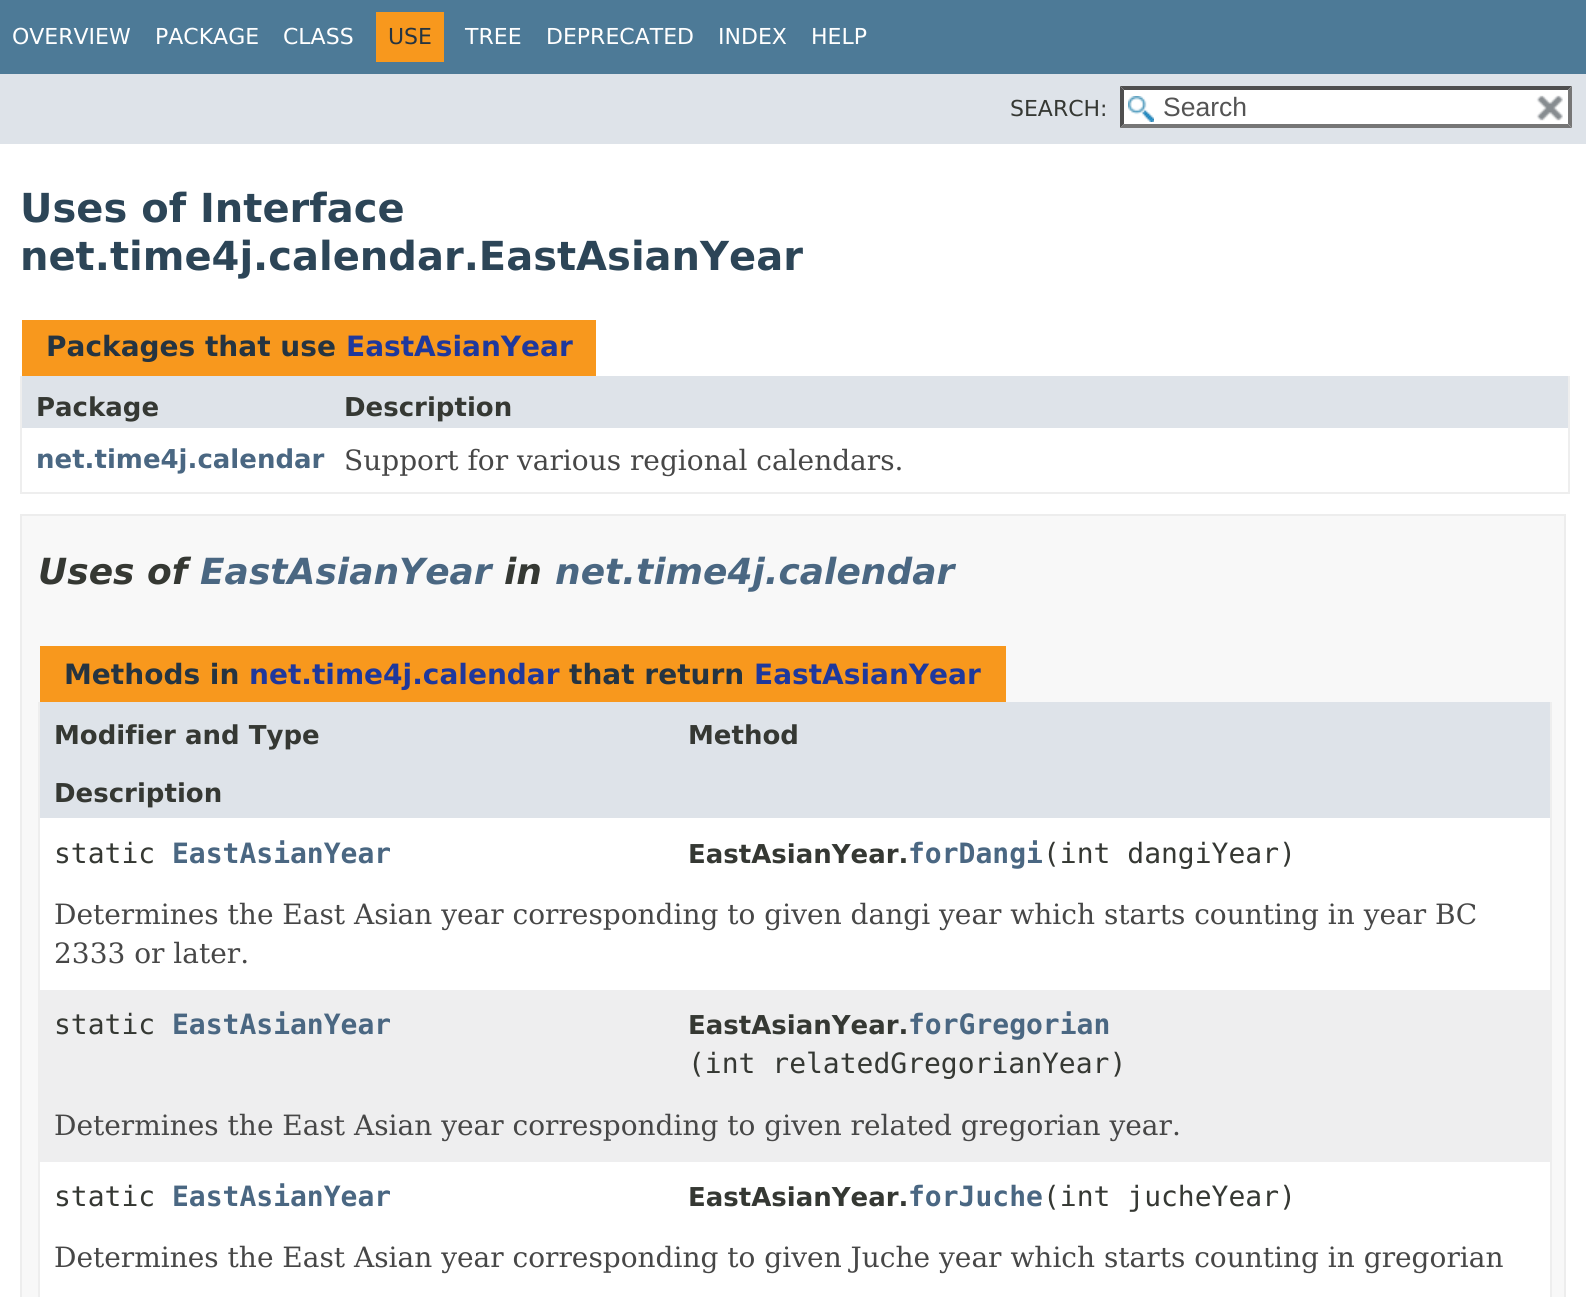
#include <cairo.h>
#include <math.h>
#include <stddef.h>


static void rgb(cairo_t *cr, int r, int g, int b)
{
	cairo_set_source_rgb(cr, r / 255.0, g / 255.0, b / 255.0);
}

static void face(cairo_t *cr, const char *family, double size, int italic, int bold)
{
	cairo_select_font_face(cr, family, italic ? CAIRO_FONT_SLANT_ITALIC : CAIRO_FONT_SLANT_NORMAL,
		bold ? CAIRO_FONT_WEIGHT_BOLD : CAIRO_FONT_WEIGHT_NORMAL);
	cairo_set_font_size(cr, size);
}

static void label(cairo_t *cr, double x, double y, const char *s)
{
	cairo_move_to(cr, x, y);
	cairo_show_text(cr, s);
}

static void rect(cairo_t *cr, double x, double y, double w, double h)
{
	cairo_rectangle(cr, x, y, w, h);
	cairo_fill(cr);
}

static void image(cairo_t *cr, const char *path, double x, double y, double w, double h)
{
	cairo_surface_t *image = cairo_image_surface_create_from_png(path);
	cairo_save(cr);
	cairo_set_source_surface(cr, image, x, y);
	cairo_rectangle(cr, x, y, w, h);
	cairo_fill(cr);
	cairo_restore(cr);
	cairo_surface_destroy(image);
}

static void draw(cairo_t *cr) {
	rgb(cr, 255, 255, 255);
	cairo_paint(cr);
	rgb(cr, 77, 122, 151);
	rect(cr, 0, 0, 1586, 74);
	face(cr, "DejaVu Sans", 22, 0, 0);
	rgb(cr, 255, 255, 255);
	label(cr, 12, 44, "OVERVIEW");
	label(cr, 155, 44, "PACKAGE");
	label(cr, 283, 44, "CLASS");
	rgb(cr, 248, 152, 29);
	rect(cr, 376, 12, 68, 50);
	rgb(cr, 37, 52, 65);
	label(cr, 388, 44, "USE");
	rgb(cr, 255, 255, 255);
	label(cr, 465, 44, "TREE");
	label(cr, 546, 44, "DEPRECATED");
	label(cr, 718, 44, "INDEX");
	label(cr, 811, 44, "HELP");
	rgb(cr, 222, 227, 233);
	rect(cr, 0, 74, 1586, 70);
	rgb(cr, 53, 56, 51);
	label(cr, 1010, 116, "SEARCH:");
	rgb(cr, 255, 255, 255);
	rect(cr, 1120, 86, 452, 42);
	image(cr, "image0.png", 1128, 96, 26, 26);
	rgb(cr, 79, 79, 79);
	cairo_new_path(cr);
	cairo_move_to(cr, 1120, 86);
	cairo_line_to(cr, 1572, 86);
	cairo_line_to(cr, 1568, 90);
	cairo_line_to(cr, 1124, 90);
	cairo_close_path(cr);
	cairo_fill(cr);
	rgb(cr, 118, 118, 118);
	cairo_new_path(cr);
	cairo_move_to(cr, 1572, 86);
	cairo_line_to(cr, 1572, 128);
	cairo_line_to(cr, 1568, 124);
	cairo_line_to(cr, 1568, 90);
	cairo_close_path(cr);
	cairo_fill(cr);
	cairo_new_path(cr);
	cairo_move_to(cr, 1572, 128);
	cairo_line_to(cr, 1120, 128);
	cairo_line_to(cr, 1124, 124);
	cairo_line_to(cr, 1568, 124);
	cairo_close_path(cr);
	cairo_fill(cr);
	rgb(cr, 79, 79, 79);
	cairo_new_path(cr);
	cairo_move_to(cr, 1120, 128);
	cairo_line_to(cr, 1120, 86);
	cairo_line_to(cr, 1124, 90);
	cairo_line_to(cr, 1124, 124);
	cairo_close_path(cr);
	cairo_fill(cr);
	face(cr, "Liberation Sans", 26.5, 0, 0);
	rgb(cr, 84, 84, 84);
	label(cr, 1163, 116, "Search");
	image(cr, "image1.png", 1536, 95, 27, 26);
	face(cr, "DejaVu Sans", 40, 0, 1);
	rgb(cr, 44, 69, 87);
	label(cr, 20, 222, "Uses of Interface");
	label(cr, 20, 270, "net.time4j.calendar.EastAsianYear");
	rgb(cr, 248, 152, 29);
	rect(cr, 22, 320, 574, 56);
	face(cr, "DejaVu Sans", 28, 0, 1);
	rgb(cr, 37, 52, 65);
	label(cr, 46, 356, "Packages that use");
	rgb(cr, 31, 56, 156);
	label(cr, 346, 356, "EastAsianYear");
	rgb(cr, 238, 238, 238);
	rect(cr, 1568, 376, 2, 118);
	rect(cr, 20, 492, 1550, 2);
	rect(cr, 20, 376, 2, 118);
	rgb(cr, 222, 227, 233);
	rect(cr, 22, 376, 1546, 52);
	face(cr, "DejaVu Sans", 26, 0, 1);
	rgb(cr, 53, 56, 51);
	label(cr, 36, 416, "Package");
	label(cr, 344, 416, "Description");
	rgb(cr, 74, 103, 130);
	label(cr, 36, 468, "net.time4j.calendar");
	face(cr, "DejaVu Serif", 28, 0, 0);
	rgb(cr, 71, 71, 71);
	label(cr, 344, 470, "Support for various regional calendars.");
	rgb(cr, 248, 248, 248);
	cairo_rectangle(cr, 21, 515, 1544, 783);
	cairo_fill_preserve(cr);
	rgb(cr, 237, 237, 237);
	cairo_stroke(cr);
	face(cr, "DejaVu Sans", 36, 1, 1);
	rgb(cr, 53, 56, 51);
	label(cr, 38, 584, "Uses of");
	rgb(cr, 74, 103, 130);
	label(cr, 200, 584, "EastAsianYear");
	rgb(cr, 53, 56, 51);
	label(cr, 504, 584, "in");
	rgb(cr, 74, 103, 130);
	label(cr, 555, 584, "net.time4j.calendar");
	rgb(cr, 248, 152, 29);
	rect(cr, 40, 646, 966, 56);
	face(cr, "DejaVu Sans", 28, 0, 1);
	rgb(cr, 37, 52, 65);
	label(cr, 64, 684, "Methods in");
	rgb(cr, 31, 56, 156);
	label(cr, 249, 684, "net.time4j.calendar");
	rgb(cr, 37, 52, 65);
	label(cr, 569, 684, "that return");
	rgb(cr, 31, 56, 156);
	label(cr, 754, 684, "EastAsianYear");
	rgb(cr, 238, 238, 238);
	rect(cr, 1550, 702, 2, 595);
	rect(cr, 38, 702, 2, 595);
	rgb(cr, 222, 227, 233);
	rect(cr, 40, 702, 1510, 58);
	face(cr, "DejaVu Sans", 26, 0, 1);
	rgb(cr, 53, 56, 51);
	label(cr, 54, 744, "Modifier and Type");
	label(cr, 688, 744, "Method");
	rgb(cr, 222, 227, 233);
	rect(cr, 40, 760, 1510, 58);
	rgb(cr, 53, 56, 51);
	label(cr, 54, 802, "Description");
	rgb(cr, 255, 255, 255);
	rect(cr, 40, 818, 1510, 62);
	face(cr, "DejaVu Sans Mono", 28, 0, 0);
	rgb(cr, 53, 56, 51);
	label(cr, 54, 863, "static");
	face(cr, "DejaVu Sans Mono", 28, 0, 1);
	rgb(cr, 74, 103, 130);
	label(cr, 172, 863, "EastAsianYear");
	face(cr, "DejaVu Sans", 26, 0, 1);
	rgb(cr, 53, 56, 51);
	label(cr, 688, 863, "EastAsianYear.");
	face(cr, "DejaVu Sans Mono", 28, 0, 1);
	rgb(cr, 74, 103, 130);
	label(cr, 908, 863, "forDangi");
	face(cr, "DejaVu Sans Mono", 28, 0, 0);
	rgb(cr, 53, 56, 51);
	label(cr, 1043, 863, "(int dangiYear)");
	rgb(cr, 255, 255, 255);
	rect(cr, 40, 880, 1510, 110);
	face(cr, "DejaVu Serif", 28, 0, 0);
	rgb(cr, 71, 71, 71);
	label(cr, 54, 924, "Determines the East Asian year corresponding to given dangi year which starts counting in year BC");
	label(cr, 54, 963, "2333 or later.");
	rgb(cr, 238, 238, 239);
	rect(cr, 40, 990, 1510, 100);
	face(cr, "DejaVu Sans Mono", 28, 0, 0);
	rgb(cr, 53, 56, 51);
	label(cr, 54, 1034, "static");
	face(cr, "DejaVu Sans Mono", 28, 0, 1);
	rgb(cr, 74, 103, 130);
	label(cr, 172, 1034, "EastAsianYear");
	face(cr, "DejaVu Sans", 26, 0, 1);
	rgb(cr, 53, 56, 51);
	label(cr, 688, 1034, "EastAsianYear.");
	face(cr, "DejaVu Sans Mono", 28, 0, 1);
	rgb(cr, 74, 103, 130);
	label(cr, 908, 1034, "forGregorian");
	face(cr, "DejaVu Sans Mono", 28, 0, 0);
	rgb(cr, 53, 56, 51);
	label(cr, 688, 1073, "(int relatedGregorianYear)");
	rgb(cr, 238, 238, 239);
	rect(cr, 40, 1090, 1510, 72);
	face(cr, "DejaVu Serif", 28, 0, 0);
	rgb(cr, 71, 71, 71);
	label(cr, 54, 1135, "Determines the East Asian year corresponding to given related gregorian year.");
	rgb(cr, 255, 255, 255);
	rect(cr, 40, 1162, 1510, 62);
	face(cr, "DejaVu Sans Mono", 28, 0, 0);
	rgb(cr, 53, 56, 51);
	label(cr, 54, 1206, "static");
	face(cr, "DejaVu Sans Mono", 28, 0, 1);
	rgb(cr, 74, 103, 130);
	label(cr, 172, 1206, "EastAsianYear");
	face(cr, "DejaVu Sans", 26, 0, 1);
	rgb(cr, 53, 56, 51);
	label(cr, 688, 1206, "EastAsianYear.");
	face(cr, "DejaVu Sans Mono", 28, 0, 1);
	rgb(cr, 74, 103, 130);
	label(cr, 908, 1206, "forJuche");
	face(cr, "DejaVu Sans Mono", 28, 0, 0);
	rgb(cr, 53, 56, 51);
	label(cr, 1043, 1206, "(int jucheYear)");
	rgb(cr, 255, 255, 255);
	rect(cr, 40, 1224, 1510, 73);
	face(cr, "DejaVu Serif", 28, 0, 0);
	rgb(cr, 71, 71, 71);
	label(cr, 54, 1267, "Determines the East Asian year corresponding to given Juche year which starts counting in gregorian");
}

int main(void) {
	cairo_surface_t *surface = cairo_image_surface_create(CAIRO_FORMAT_RGB24, 1586, 1297);
	cairo_t *cr = cairo_create(surface);
	cairo_font_options_t *options = cairo_font_options_create();
	cairo_font_options_set_hint_metrics(options, CAIRO_HINT_METRICS_OFF);
	cairo_font_options_set_hint_style(options, CAIRO_HINT_STYLE_NONE);
	cairo_set_font_options(cr, options);
	cairo_set_miter_limit(cr, 4);
	draw(cr);
	cairo_surface_write_to_png(surface, "render.png");
	cairo_font_options_destroy(options);
	cairo_destroy(cr);
	cairo_surface_destroy(surface);
	return 0;
}
